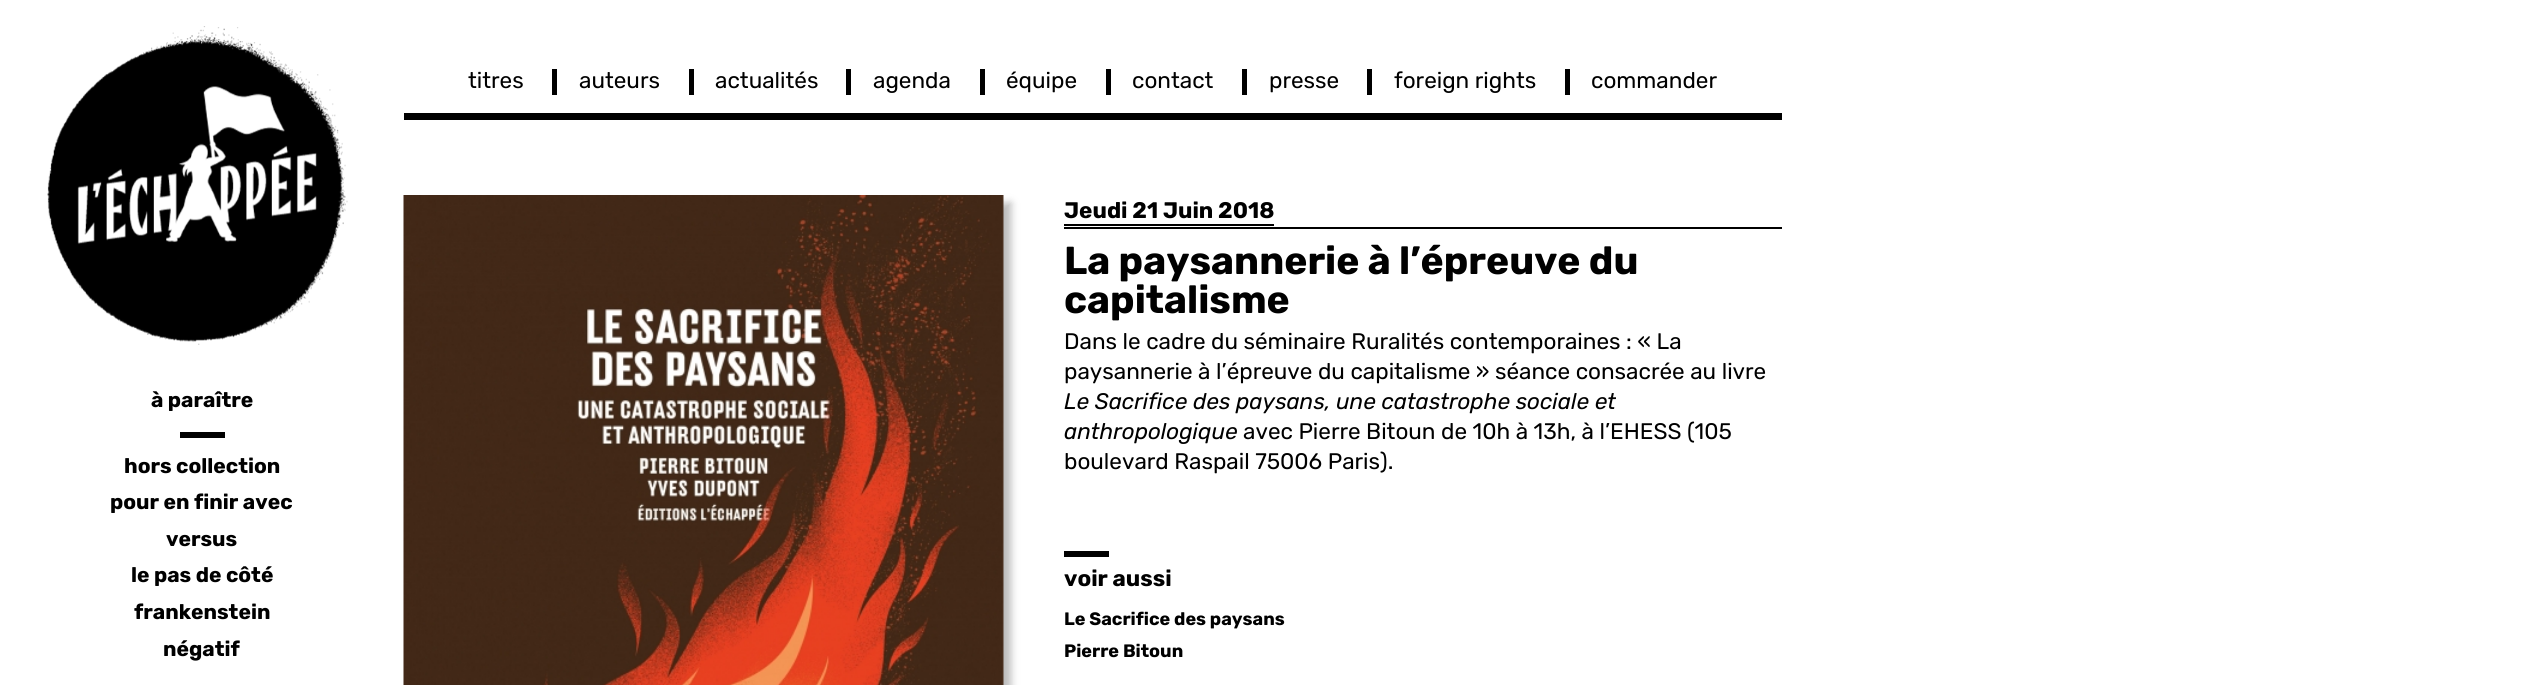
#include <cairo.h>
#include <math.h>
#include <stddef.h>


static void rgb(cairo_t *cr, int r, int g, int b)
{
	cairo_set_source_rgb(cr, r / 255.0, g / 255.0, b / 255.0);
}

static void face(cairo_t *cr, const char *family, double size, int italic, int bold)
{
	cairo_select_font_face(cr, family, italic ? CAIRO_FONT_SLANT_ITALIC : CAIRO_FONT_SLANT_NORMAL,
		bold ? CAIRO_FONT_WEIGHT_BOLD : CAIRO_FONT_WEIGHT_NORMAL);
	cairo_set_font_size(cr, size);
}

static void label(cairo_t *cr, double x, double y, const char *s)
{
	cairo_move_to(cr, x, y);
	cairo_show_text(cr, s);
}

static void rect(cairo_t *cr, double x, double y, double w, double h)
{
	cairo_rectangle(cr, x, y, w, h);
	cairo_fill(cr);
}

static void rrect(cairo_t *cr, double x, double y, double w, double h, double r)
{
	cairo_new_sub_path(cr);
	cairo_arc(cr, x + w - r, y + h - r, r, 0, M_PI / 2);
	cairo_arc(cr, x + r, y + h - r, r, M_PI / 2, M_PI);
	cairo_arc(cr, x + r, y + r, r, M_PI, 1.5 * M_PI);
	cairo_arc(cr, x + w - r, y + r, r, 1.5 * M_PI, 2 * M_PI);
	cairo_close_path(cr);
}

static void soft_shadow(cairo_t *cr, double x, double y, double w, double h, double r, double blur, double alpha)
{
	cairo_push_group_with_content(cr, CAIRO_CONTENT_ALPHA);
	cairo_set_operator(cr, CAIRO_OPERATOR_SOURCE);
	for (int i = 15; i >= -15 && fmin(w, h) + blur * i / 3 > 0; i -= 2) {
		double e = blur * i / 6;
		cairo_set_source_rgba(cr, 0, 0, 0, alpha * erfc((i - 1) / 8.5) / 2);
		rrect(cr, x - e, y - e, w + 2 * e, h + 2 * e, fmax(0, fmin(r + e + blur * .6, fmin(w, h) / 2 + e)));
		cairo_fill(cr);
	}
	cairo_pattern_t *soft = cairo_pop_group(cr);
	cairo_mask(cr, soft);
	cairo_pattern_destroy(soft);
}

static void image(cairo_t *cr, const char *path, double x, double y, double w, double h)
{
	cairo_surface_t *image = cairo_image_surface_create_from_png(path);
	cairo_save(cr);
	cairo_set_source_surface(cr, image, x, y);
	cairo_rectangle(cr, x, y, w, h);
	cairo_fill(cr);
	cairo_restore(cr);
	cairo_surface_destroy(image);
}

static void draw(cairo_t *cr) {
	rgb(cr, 255, 255, 255);
	cairo_paint(cr);
	rgb(cr, 0, 0, 0);
	rect(cr, 404, 113, 1378, 7);
	face(cr, "Rubik", 22.5, 0, 0);
	label(cr, 468, 88, "titres");
	rect(cr, 552, 69, 5, 26);
	label(cr, 579, 88, "auteurs");
	rect(cr, 689, 69, 5, 26);
	label(cr, 715, 88, "actualités");
	rect(cr, 846, 69, 5, 26);
	label(cr, 873, 88, "agenda");
	rect(cr, 980, 69, 5, 26);
	label(cr, 1006, 88, "équipe");
	rect(cr, 1106, 69, 5, 26);
	label(cr, 1132, 88, "contact");
	rect(cr, 1242, 69, 5, 26);
	label(cr, 1269, 88, "presse");
	rect(cr, 1367, 69, 5, 26);
	label(cr, 1394, 88, "foreign rights");
	rect(cr, 1565, 69, 5, 26);
	label(cr, 1591, 88, "commander");
	image(cr, "image0.png", 47, 26, 301, 319);
	face(cr, "Rubik", 21, 0, 1);
	label(cr, 151, 407, "à paraître");
	rect(cr, 180, 432, 45, 6);
	label(cr, 124, 473, "hors collection");
	label(cr, 110, 509, "pour en finir avec");
	label(cr, 166, 546, "versus");
	label(cr, 131, 582, "le pas de côté");
	label(cr, 134, 619, "frankenstein");
	label(cr, 163, 656, "négatif");
	rgb(cr, 187, 187, 187);
	soft_shadow(cr, 411, 203, 600, 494, 0, 4, 1);
	image(cr, "image1.png", 403, 195, 601, 490);
	face(cr, "Rubik", 22.5, 0, 1);
	rgb(cr, 0, 0, 0);
	label(cr, 1064, 218, "Jeudi 21 Juin 2018");
	rect(cr, 1064, 224, 210, 2);
	rect(cr, 1064, 227, 718, 2);
	face(cr, "Rubik", 39, 0, 1);
	label(cr, 1064, 274, "La paysannerie à l’épreuve du");
	label(cr, 1064, 313, "capitalisme");
	face(cr, "Rubik", 22.5, 0, 0);
	label(cr, 1064, 349, "Dans le cadre du séminaire Ruralités contemporaines : « La");
	label(cr, 1064, 379, "paysannerie à l’épreuve du capitalisme » séance consacrée au livre");
	face(cr, "Rubik", 22.5, 1, 0);
	label(cr, 1064, 409, "Le Sacrifice des paysans, une catastrophe sociale et");
	label(cr, 1064, 439, "anthropologique");
	face(cr, "Rubik", 22.5, 0, 0);
	label(cr, 1243, 439, "avec Pierre Bitoun de 10h à 13h, à l’EHESS (105");
	label(cr, 1064, 469, "boulevard Raspail 75006 Paris).");
	rect(cr, 1064, 551, 45, 6);
	face(cr, "Rubik", 22.5, 0, 1);
	label(cr, 1064, 586, "voir aussi");
	face(cr, "Rubik", 18, 0, 1);
	label(cr, 1064, 625, "Le Sacrifice des paysans");
	label(cr, 1064, 657, "Pierre Bitoun");
}

int main(void) {
	cairo_surface_t *surface = cairo_image_surface_create(CAIRO_FORMAT_RGB24, 2529, 685);
	cairo_t *cr = cairo_create(surface);
	cairo_font_options_t *options = cairo_font_options_create();
	cairo_font_options_set_hint_metrics(options, CAIRO_HINT_METRICS_OFF);
	cairo_font_options_set_hint_style(options, CAIRO_HINT_STYLE_NONE);
	cairo_set_font_options(cr, options);
	cairo_set_miter_limit(cr, 4);
	draw(cr);
	cairo_surface_write_to_png(surface, "render.png");
	cairo_font_options_destroy(options);
	cairo_destroy(cr);
	cairo_surface_destroy(surface);
	return 0;
}
